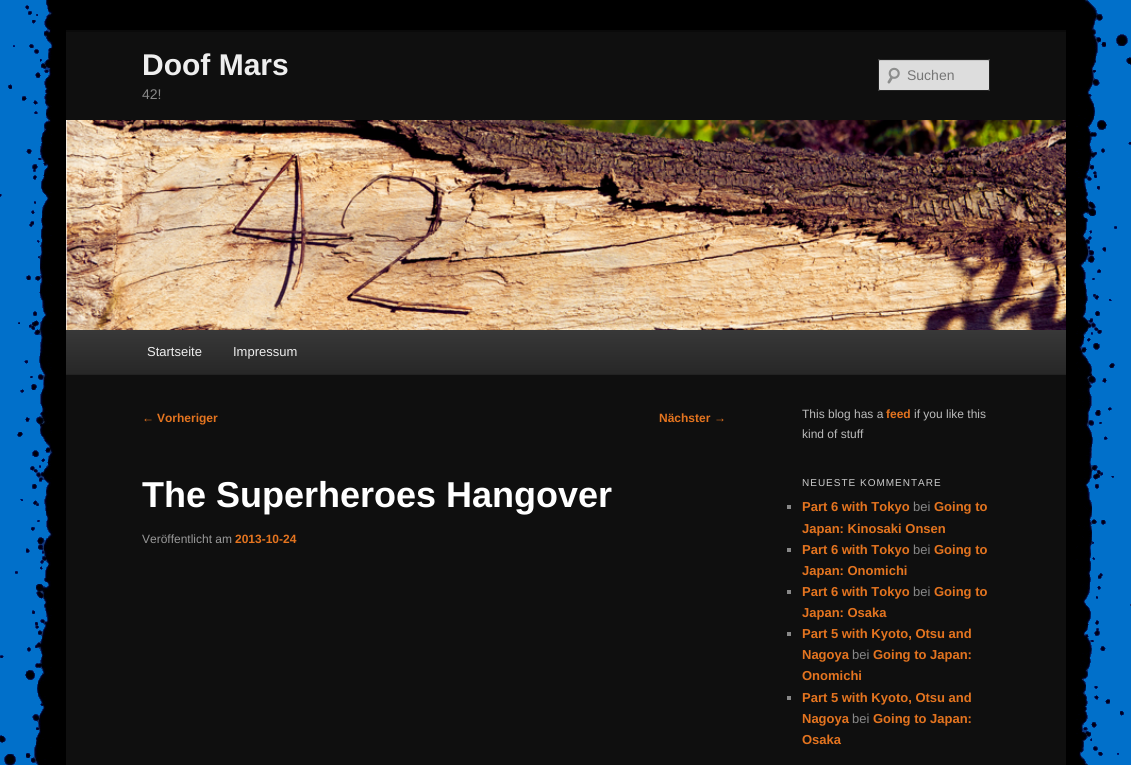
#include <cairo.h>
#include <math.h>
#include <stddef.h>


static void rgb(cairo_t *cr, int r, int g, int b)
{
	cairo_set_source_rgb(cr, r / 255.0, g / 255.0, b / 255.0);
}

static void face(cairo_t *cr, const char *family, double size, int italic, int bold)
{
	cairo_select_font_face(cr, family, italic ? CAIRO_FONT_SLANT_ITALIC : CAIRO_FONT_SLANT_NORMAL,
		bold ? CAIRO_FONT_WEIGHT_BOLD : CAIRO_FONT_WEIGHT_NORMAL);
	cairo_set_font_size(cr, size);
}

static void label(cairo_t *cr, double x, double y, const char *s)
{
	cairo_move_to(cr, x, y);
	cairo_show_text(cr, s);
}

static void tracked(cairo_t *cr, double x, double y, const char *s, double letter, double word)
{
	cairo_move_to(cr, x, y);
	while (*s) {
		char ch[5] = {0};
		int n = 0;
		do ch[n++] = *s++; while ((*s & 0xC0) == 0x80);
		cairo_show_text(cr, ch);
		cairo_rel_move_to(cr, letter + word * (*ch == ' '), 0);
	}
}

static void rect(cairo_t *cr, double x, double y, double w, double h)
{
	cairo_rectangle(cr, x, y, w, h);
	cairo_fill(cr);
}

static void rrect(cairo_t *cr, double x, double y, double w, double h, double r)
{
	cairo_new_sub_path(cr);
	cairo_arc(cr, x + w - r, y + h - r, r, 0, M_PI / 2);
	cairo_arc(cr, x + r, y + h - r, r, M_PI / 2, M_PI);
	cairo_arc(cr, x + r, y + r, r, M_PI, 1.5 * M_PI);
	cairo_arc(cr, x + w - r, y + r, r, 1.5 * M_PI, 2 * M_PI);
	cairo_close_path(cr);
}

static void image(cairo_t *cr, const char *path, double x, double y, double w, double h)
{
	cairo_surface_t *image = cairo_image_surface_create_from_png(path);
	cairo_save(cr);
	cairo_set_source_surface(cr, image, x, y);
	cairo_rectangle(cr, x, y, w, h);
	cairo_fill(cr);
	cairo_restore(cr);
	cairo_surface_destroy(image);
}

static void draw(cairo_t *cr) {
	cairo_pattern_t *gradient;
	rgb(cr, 1, 112, 202);
	cairo_paint(cr);
	image(cr, "image0.png", 0, 0, 1131, 765);
	rgb(cr, 15, 15, 15);
	rect(cr, 66, 32, 1000, 733);
	rgb(cr, 10, 10, 10);
	rect(cr, 66, 30, 1000, 2);
	face(cr, "Liberation Sans", 30, 0, 1);
	rgb(cr, 238, 238, 238);
	label(cr, 142, 75, "Doof Mars");
	face(cr, "Liberation Sans", 14, 0, 0);
	rgb(cr, 136, 136, 136);
	label(cr, 142, 99, "42!");
	rgb(cr, 221, 221, 221);
	rrect(cr, 878, 59, 112, 32, 2);
	cairo_fill(cr);
	image(cr, "image1.png", 887, 67, 13, 17);
	cairo_set_source_rgba(cr, 0, 0, 0, 0.1);
	cairo_new_path(cr);
	cairo_move_to(cr, 880, 61);
	cairo_line_to(cr, 989, 61);
	cairo_line_to(cr, 989, 62);
	cairo_line_to(cr, 988, 60);
	cairo_line_to(cr, 898, 60);
	cairo_curve_to(cr, 894, 60, 879, 55, 879, 62);
	cairo_curve_to(cr, 879, 61, 879, 61, 880, 61);
	cairo_close_path(cr);
	cairo_fill(cr);
	rrect(cr, 878.5, 59.5, 111, 31, 1.5);
	rgb(cr, 34, 34, 34);
	cairo_set_line_width(cr, 1);
	cairo_stroke(cr);
	rgb(cr, 117, 117, 117);
	label(cr, 907, 80, "Suchen");
	image(cr, "image2.png", 66, 120, 1000, 210);
	gradient = cairo_pattern_create_linear(566, 330, 566, 374);
	cairo_pattern_add_color_stop_rgba(gradient, 0, 0.22, 0.22, 0.22, 1);
	cairo_pattern_add_color_stop_rgba(gradient, 1, 0.153, 0.153, 0.153, 1);
	cairo_set_source(cr, gradient);
	cairo_pattern_destroy(gradient);
	rect(cr, 66, 330, 1000, 44);
	rgb(cr, 34, 34, 34);
	rect(cr, 66, 374, 1000, 1);
	face(cr, "Liberation Sans", 13, 0, 0);
	rgb(cr, 238, 238, 238);
	label(cr, 147, 356, "Startseite");
	label(cr, 233, 356, "Impressum");
	face(cr, "Liberation Sans", 12, 0, 0);
	rgb(cr, 228, 116, 31);
	label(cr, 142, 422, "←");
	face(cr, "Liberation Sans", 12, 0, 1);
	label(cr, 157, 422, "Vorheriger");
	label(cr, 659, 422, "Nächster");
	face(cr, "Liberation Sans", 12, 0, 0);
	label(cr, 714, 422, "→");
	face(cr, "Liberation Sans", 36, 0, 1);
	rgb(cr, 255, 255, 255);
	label(cr, 142, 507, "The Superheroes Hangover");
	face(cr, "Liberation Sans", 12, 0, 0);
	rgb(cr, 153, 153, 153);
	label(cr, 142, 543, "Veröffentlicht am");
	face(cr, "Liberation Sans", 12, 0, 1);
	rgb(cr, 228, 116, 31);
	label(cr, 235, 543, "2013-10-24");
	face(cr, "Liberation Sans", 12, 0, 0);
	rgb(cr, 187, 187, 187);
	label(cr, 802, 418, "This blog has a");
	face(cr, "Liberation Sans", 12, 0, 1);
	rgb(cr, 228, 116, 31);
	label(cr, 886, 418, "feed");
	face(cr, "Liberation Sans", 12, 0, 0);
	rgb(cr, 187, 187, 187);
	label(cr, 914, 418, "if you like this");
	label(cr, 802, 438, "kind of stuff");
	face(cr, "Liberation Sans", 10, 0, 0);
	rgb(cr, 204, 204, 204);
	tracked(cr, 802, 486, "NEUESTE KOMMENTARE", 1, 0);
	rgb(cr, 136, 136, 136);
	rect(cr, 787, 505, 4, 4);
	face(cr, "Liberation Sans", 13, 0, 1);
	rgb(cr, 228, 116, 31);
	label(cr, 802, 511, "Part 6 with Tokyo");
	face(cr, "Liberation Sans", 13, 0, 0);
	rgb(cr, 136, 136, 136);
	label(cr, 913, 511, "bei");
	face(cr, "Liberation Sans", 13, 0, 1);
	rgb(cr, 228, 116, 31);
	label(cr, 934, 511, "Going to");
	label(cr, 802, 533, "Japan: Kinosaki Onsen");
	rgb(cr, 136, 136, 136);
	rect(cr, 787, 548, 4, 4);
	rgb(cr, 228, 116, 31);
	label(cr, 802, 554, "Part 6 with Tokyo");
	face(cr, "Liberation Sans", 13, 0, 0);
	rgb(cr, 136, 136, 136);
	label(cr, 913, 554, "bei");
	face(cr, "Liberation Sans", 13, 0, 1);
	rgb(cr, 228, 116, 31);
	label(cr, 934, 554, "Going to");
	label(cr, 802, 575, "Japan: Onomichi");
	rgb(cr, 136, 136, 136);
	rect(cr, 787, 590, 4, 4);
	rgb(cr, 228, 116, 31);
	label(cr, 802, 596, "Part 6 with Tokyo");
	face(cr, "Liberation Sans", 13, 0, 0);
	rgb(cr, 136, 136, 136);
	label(cr, 913, 596, "bei");
	face(cr, "Liberation Sans", 13, 0, 1);
	rgb(cr, 228, 116, 31);
	label(cr, 934, 596, "Going to");
	label(cr, 802, 617, "Japan: Osaka");
	rgb(cr, 136, 136, 136);
	rect(cr, 787, 632, 4, 4);
	rgb(cr, 228, 116, 31);
	label(cr, 802, 638, "Part 5 with Kyoto, Otsu and");
	label(cr, 802, 659, "Nagoya");
	face(cr, "Liberation Sans", 13, 0, 0);
	rgb(cr, 136, 136, 136);
	label(cr, 852, 659, "bei");
	face(cr, "Liberation Sans", 13, 0, 1);
	rgb(cr, 228, 116, 31);
	label(cr, 873, 659, "Going to Japan:");
	label(cr, 802, 680, "Onomichi");
	rgb(cr, 136, 136, 136);
	rect(cr, 787, 696, 4, 4);
	rgb(cr, 228, 116, 31);
	label(cr, 802, 702, "Part 5 with Kyoto, Otsu and");
	label(cr, 802, 723, "Nagoya");
	face(cr, "Liberation Sans", 13, 0, 0);
	rgb(cr, 136, 136, 136);
	label(cr, 852, 723, "bei");
	face(cr, "Liberation Sans", 13, 0, 1);
	rgb(cr, 228, 116, 31);
	label(cr, 873, 723, "Going to Japan:");
	label(cr, 802, 744, "Osaka");
}

int main(void) {
	cairo_surface_t *surface = cairo_image_surface_create(CAIRO_FORMAT_RGB24, 1131, 765);
	cairo_t *cr = cairo_create(surface);
	cairo_font_options_t *options = cairo_font_options_create();
	cairo_font_options_set_hint_metrics(options, CAIRO_HINT_METRICS_OFF);
	cairo_font_options_set_hint_style(options, CAIRO_HINT_STYLE_NONE);
	cairo_set_font_options(cr, options);
	cairo_set_miter_limit(cr, 4);
	draw(cr);
	cairo_surface_write_to_png(surface, "render.png");
	cairo_font_options_destroy(options);
	cairo_destroy(cr);
	cairo_surface_destroy(surface);
	return 0;
}
